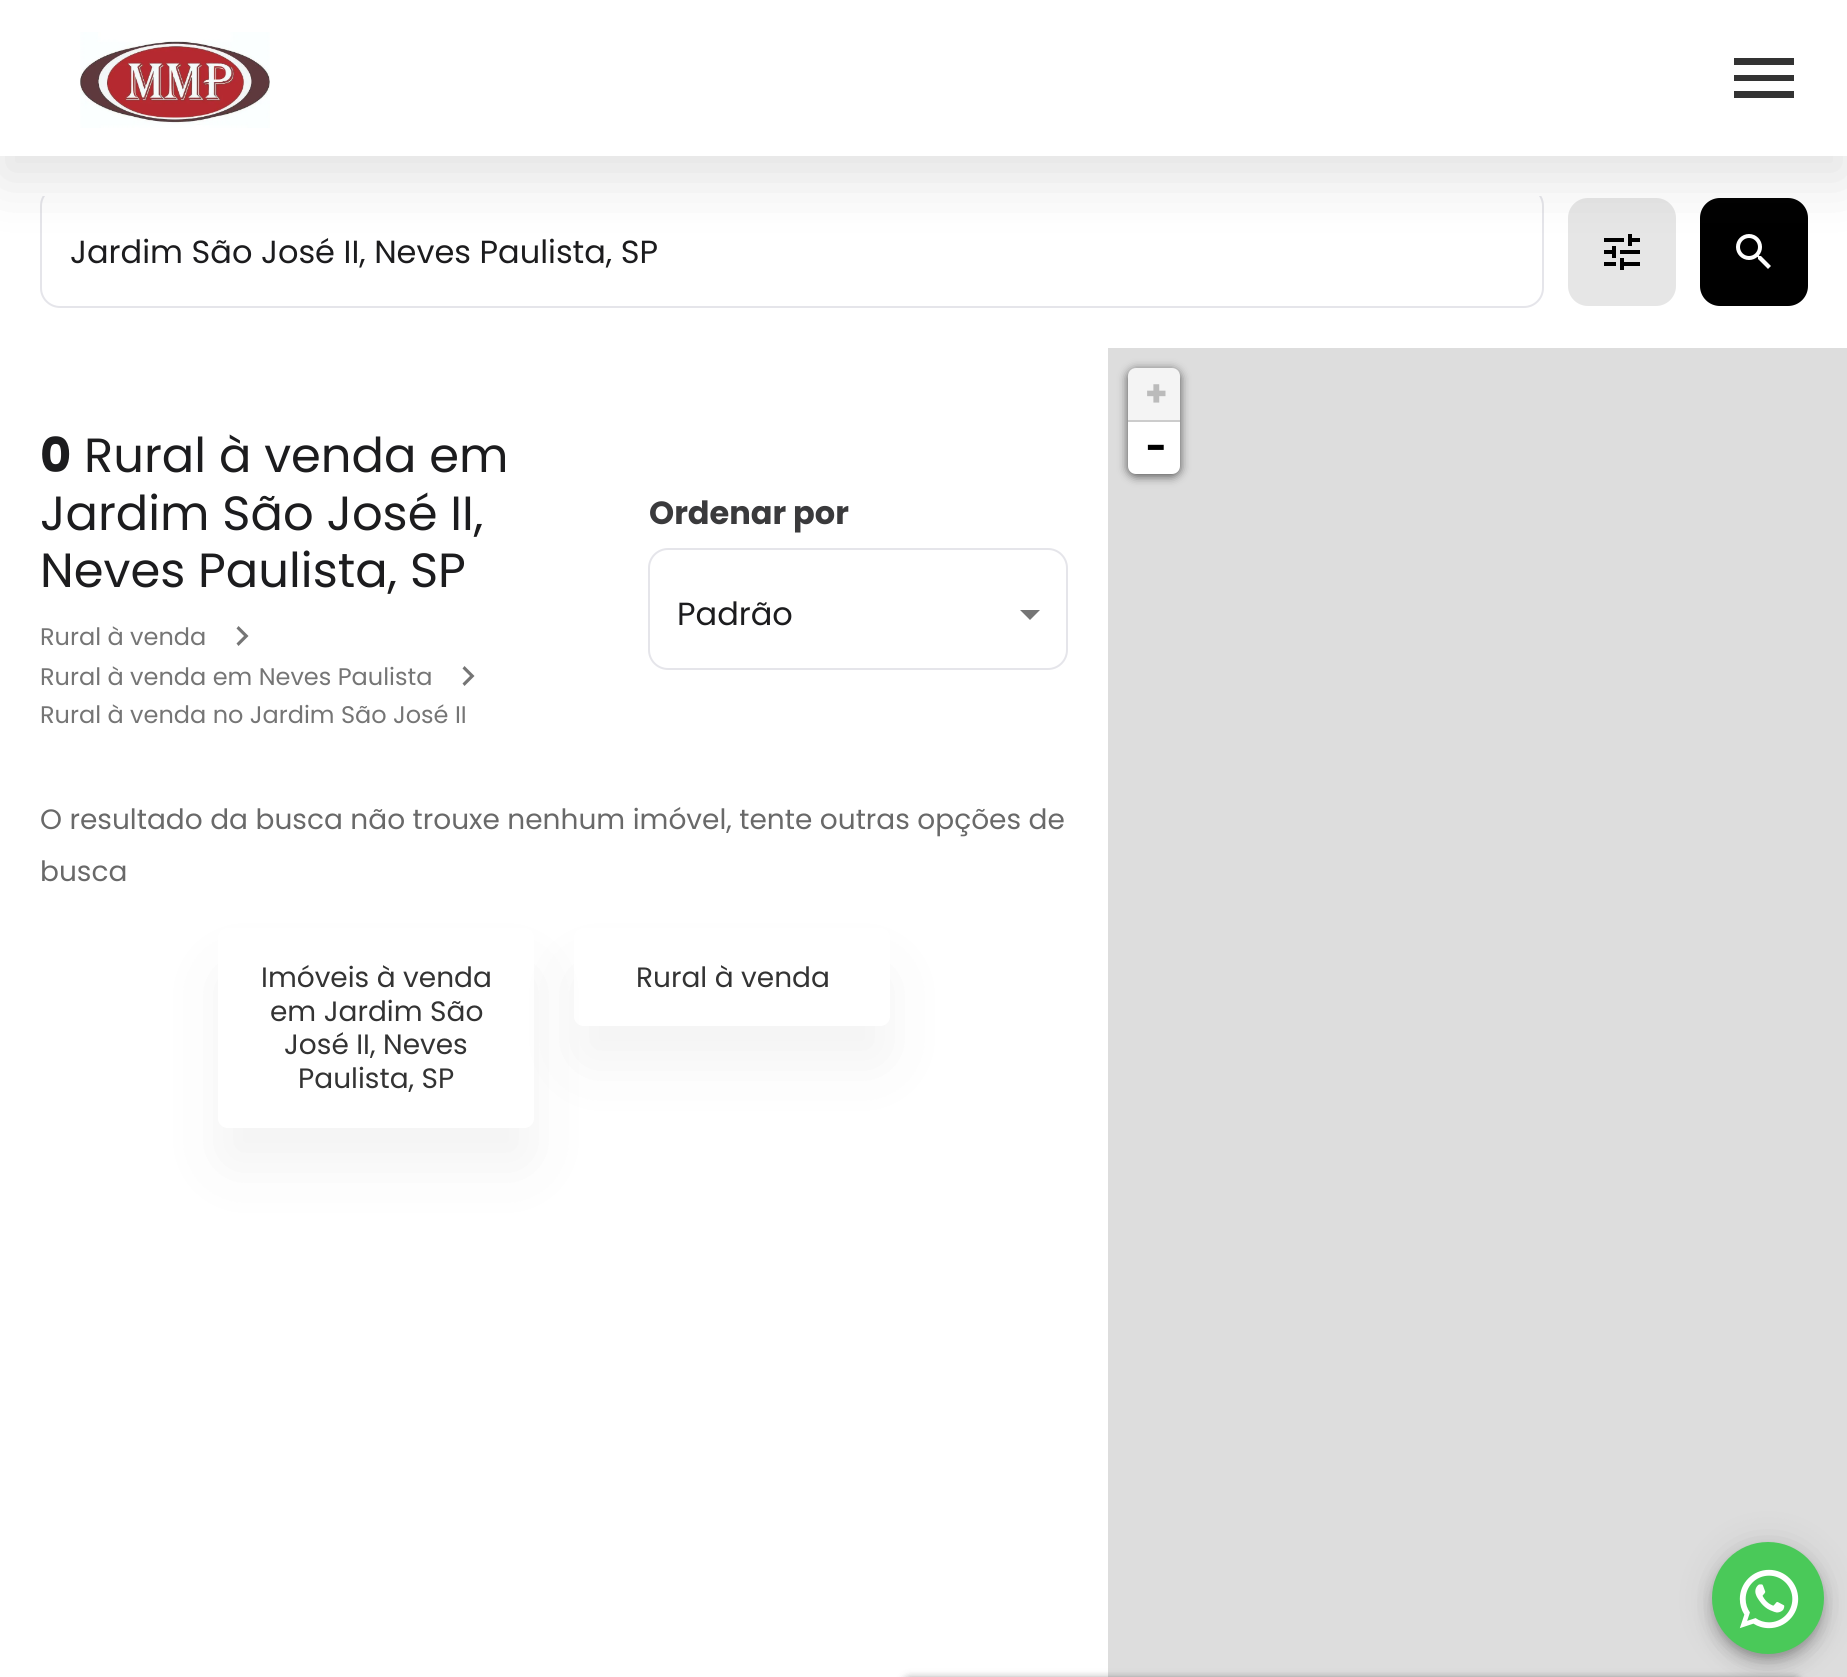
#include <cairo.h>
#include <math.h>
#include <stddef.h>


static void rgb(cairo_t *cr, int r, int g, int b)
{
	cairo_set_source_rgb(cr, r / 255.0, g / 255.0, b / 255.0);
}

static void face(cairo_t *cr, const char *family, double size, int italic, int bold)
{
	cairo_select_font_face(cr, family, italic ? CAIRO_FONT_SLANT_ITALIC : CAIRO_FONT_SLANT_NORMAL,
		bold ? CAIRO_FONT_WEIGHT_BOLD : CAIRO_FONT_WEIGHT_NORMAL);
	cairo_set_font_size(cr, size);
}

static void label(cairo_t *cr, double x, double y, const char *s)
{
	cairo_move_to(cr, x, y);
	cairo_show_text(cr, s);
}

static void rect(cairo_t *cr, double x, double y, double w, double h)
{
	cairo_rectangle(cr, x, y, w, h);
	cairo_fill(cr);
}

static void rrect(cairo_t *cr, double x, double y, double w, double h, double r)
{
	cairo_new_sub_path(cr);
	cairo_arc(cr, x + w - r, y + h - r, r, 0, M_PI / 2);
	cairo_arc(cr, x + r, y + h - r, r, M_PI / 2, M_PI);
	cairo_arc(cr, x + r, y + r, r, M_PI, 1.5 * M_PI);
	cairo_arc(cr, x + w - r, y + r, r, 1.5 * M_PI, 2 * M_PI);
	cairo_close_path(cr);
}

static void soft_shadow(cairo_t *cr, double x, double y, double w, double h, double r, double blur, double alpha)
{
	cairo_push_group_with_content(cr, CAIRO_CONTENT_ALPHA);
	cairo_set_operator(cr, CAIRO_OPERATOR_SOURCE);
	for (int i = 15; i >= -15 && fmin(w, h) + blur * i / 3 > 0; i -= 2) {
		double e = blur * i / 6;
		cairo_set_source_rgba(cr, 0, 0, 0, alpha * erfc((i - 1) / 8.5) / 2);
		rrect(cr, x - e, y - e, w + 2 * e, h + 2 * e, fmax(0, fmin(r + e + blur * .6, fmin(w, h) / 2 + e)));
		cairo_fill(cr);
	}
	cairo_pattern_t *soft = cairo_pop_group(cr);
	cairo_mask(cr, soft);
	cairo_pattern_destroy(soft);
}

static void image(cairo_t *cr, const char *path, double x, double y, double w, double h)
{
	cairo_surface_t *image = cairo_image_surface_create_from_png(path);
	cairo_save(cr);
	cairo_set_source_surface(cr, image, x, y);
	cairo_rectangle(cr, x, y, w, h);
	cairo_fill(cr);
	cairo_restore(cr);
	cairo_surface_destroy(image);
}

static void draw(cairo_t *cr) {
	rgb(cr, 255, 255, 255);
	cairo_paint(cr);
	cairo_save(cr);
	cairo_rectangle(cr, 28, 196, 1528, 112);
	cairo_clip(cr);
	rrect(cr, 41, 187, 1502, 120, 19);
	rgb(cr, 229, 229, 234);
	cairo_stroke(cr);
	cairo_restore(cr);
	rgb(cr, 230, 230, 230);
	rrect(cr, 1568, 198, 108, 108, 20);
	cairo_fill(cr);
	image(cr, "image1.png", 1604, 234, 36, 36);
	rgb(cr, 0, 0, 0);
	rrect(cr, 1700, 198, 108, 108, 20);
	cairo_fill(cr);
	image(cr, "image2.png", 1736, 234, 35, 35);
	rgb(cr, 51, 51, 51);
	soft_shadow(cr, 0, 22, 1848, 156, 0, 30, 0.15);
	rgb(cr, 255, 255, 255);
	rect(cr, 0, 0, 1847, 156);
	image(cr, "image0.png", 80, 32, 190, 96);
	rgb(cr, 51, 51, 51);
	cairo_new_path(cr);
	cairo_move_to(cr, 1734, 98);
	cairo_line_to(cr, 1794, 98);
	cairo_line_to(cr, 1794, 91);
	cairo_line_to(cr, 1734, 91);
	cairo_close_path(cr);
	cairo_move_to(cr, 1734, 81);
	cairo_line_to(cr, 1794, 81);
	cairo_line_to(cr, 1794, 75);
	cairo_line_to(cr, 1734, 75);
	cairo_close_path(cr);
	cairo_move_to(cr, 1734, 58);
	cairo_line_to(cr, 1734, 65);
	cairo_line_to(cr, 1794, 65);
	cairo_line_to(cr, 1794, 58);
	cairo_close_path(cr);
	cairo_fill(cr);
	face(cr, "Poppins", 32, 0, 0);
	rgb(cr, 28, 28, 30);
	label(cr, 70, 263, "Jardim São José II, Neves Paulista, SP");
	rgb(cr, 221, 221, 221);
	rect(cr, 1108, 348, 739, 1329);
	rgb(cr, 0, 0, 0);
	soft_shadow(cr, 1128, 370, 52, 106, 8, 5, 0.65);
	rgb(cr, 244, 244, 244);
	cairo_new_path(cr);
	cairo_move_to(cr, 1136, 368);
	cairo_line_to(cr, 1172, 368);
	cairo_curve_to(cr, 1176.5, 368, 1180, 371.5, 1180, 376);
	cairo_line_to(cr, 1180, 422);
	cairo_line_to(cr, 1128, 422);
	cairo_line_to(cr, 1128, 376);
	cairo_curve_to(cr, 1128, 371.5, 1131.5, 368, 1136, 368);
	cairo_close_path(cr);
	cairo_fill(cr);
	rgb(cr, 204, 204, 204);
	rect(cr, 1128, 420, 52, 2);
	face(cr, "Poppins", 36, 0, 1);
	rgb(cr, 187, 187, 187);
	label(cr, 1145, 406, "+");
	rgb(cr, 255, 255, 255);
	cairo_new_path(cr);
	cairo_move_to(cr, 1128, 422);
	cairo_line_to(cr, 1180, 422);
	cairo_line_to(cr, 1180, 466);
	cairo_curve_to(cr, 1180, 470.5, 1176.5, 474, 1172, 474);
	cairo_line_to(cr, 1136, 474);
	cairo_curve_to(cr, 1131.5, 474, 1128, 470.5, 1128, 466);
	cairo_close_path(cr);
	cairo_fill(cr);
	rgb(cr, 0, 0, 0);
	label(cr, 1146, 460, "−");
	face(cr, "Poppins", 48, 0, 1);
	rgb(cr, 28, 28, 30);
	label(cr, 40, 472, "0");
	face(cr, "Poppins", 48, 0, 0);
	label(cr, 84, 472, "Rural à venda em");
	label(cr, 40, 530, "Jardim São José II,");
	label(cr, 40, 587, "Neves Paulista, SP");
	face(cr, "Poppins", 24, 0, 0);
	rgb(cr, 117, 117, 117);
	label(cr, 40, 645, "Rural à venda");
	cairo_new_path(cr);
	cairo_move_to(cr, 238.5, 626);
	cairo_line_to(cr, 236.5, 628.5);
	cairo_line_to(cr, 244, 636);
	cairo_line_to(cr, 236.5, 643.5);
	cairo_line_to(cr, 238.5, 646);
	cairo_line_to(cr, 248.5, 636);
	cairo_close_path(cr);
	cairo_fill(cr);
	label(cr, 40, 685, "Rural à venda em Neves Paulista");
	cairo_new_path(cr);
	cairo_move_to(cr, 464.5, 666);
	cairo_line_to(cr, 462.5, 668.5);
	cairo_line_to(cr, 470, 676);
	cairo_line_to(cr, 462.5, 683.5);
	cairo_line_to(cr, 464.5, 686);
	cairo_line_to(cr, 474.5, 676);
	cairo_close_path(cr);
	cairo_fill(cr);
	label(cr, 40, 723, "Rural à venda no Jardim São José II");
	face(cr, "Poppins", 32, 0, 1);
	rgb(cr, 58, 58, 60);
	label(cr, 649, 524, "Ordenar por");
	rgb(cr, 117, 117, 117);
	cairo_new_path(cr);
	cairo_move_to(cr, 1020, 610);
	cairo_line_to(cr, 1030, 620);
	cairo_line_to(cr, 1040, 610);
	cairo_close_path(cr);
	cairo_fill(cr);
	rrect(cr, 649, 549, 418, 120, 19);
	rgb(cr, 229, 229, 234);
	cairo_stroke(cr);
	face(cr, "Poppins", 32, 0, 0);
	rgb(cr, 28, 28, 30);
	label(cr, 677, 625, "Padrão");
	face(cr, "Poppins", 28, 0, 0);
	rgb(cr, 105, 105, 105);
	label(cr, 40, 829, "O resultado da busca não trouxe nenhum imóvel, tente outras opções de");
	label(cr, 40, 881, "busca");
	cairo_save(cr);
	cairo_set_fill_rule(cr, CAIRO_FILL_RULE_EVEN_ODD);
	cairo_new_path(cr);
	cairo_move_to(cr, 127, 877);
	cairo_line_to(cr, 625, 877);
	cairo_line_to(cr, 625, 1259);
	cairo_line_to(cr, 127, 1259);
	cairo_close_path(cr);
	cairo_move_to(cr, 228, 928);
	cairo_line_to(cr, 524, 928);
	cairo_curve_to(cr, 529.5, 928, 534, 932.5, 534, 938);
	cairo_line_to(cr, 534, 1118);
	cairo_curve_to(cr, 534, 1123.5, 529.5, 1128, 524, 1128);
	cairo_line_to(cr, 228, 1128);
	cairo_curve_to(cr, 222.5, 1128, 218, 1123.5, 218, 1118);
	cairo_line_to(cr, 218, 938);
	cairo_curve_to(cr, 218, 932.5, 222.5, 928, 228, 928);
	cairo_close_path(cr);
	cairo_clip(cr);
	rgb(cr, 51, 51, 51);
	soft_shadow(cr, 218, 968, 316, 200, 10, 30, 0.06);
	cairo_restore(cr);
	rgb(cr, 51, 51, 51);
	label(cr, 261, 987, "Imóveis à venda");
	label(cr, 270, 1021, "em Jardim São");
	label(cr, 284, 1054, "José II, Neves");
	label(cr, 298, 1088, "Paulista, SP");
	cairo_save(cr);
	cairo_set_fill_rule(cr, CAIRO_FILL_RULE_EVEN_ODD);
	cairo_new_path(cr);
	cairo_move_to(cr, 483, 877);
	cairo_line_to(cr, 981, 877);
	cairo_line_to(cr, 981, 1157);
	cairo_line_to(cr, 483, 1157);
	cairo_close_path(cr);
	cairo_move_to(cr, 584, 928);
	cairo_line_to(cr, 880, 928);
	cairo_curve_to(cr, 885.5, 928, 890, 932.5, 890, 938);
	cairo_line_to(cr, 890, 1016);
	cairo_curve_to(cr, 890, 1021.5, 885.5, 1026, 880, 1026);
	cairo_line_to(cr, 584, 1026);
	cairo_curve_to(cr, 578.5, 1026, 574, 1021.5, 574, 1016);
	cairo_line_to(cr, 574, 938);
	cairo_curve_to(cr, 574, 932.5, 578.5, 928, 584, 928);
	cairo_close_path(cr);
	cairo_clip(cr);
	rgb(cr, 51, 51, 51);
	soft_shadow(cr, 574, 968, 316, 98, 10, 30, 0.06);
	cairo_restore(cr);
	label(cr, 636, 987, "Rural à venda");
	rgb(cr, 0, 0, 0);
	soft_shadow(cr, 1712, 1544, 112, 112, 56, 18, 0.12);
	soft_shadow(cr, 1712, 1554, 112, 112, 56, 10, 0.14);
	soft_shadow(cr, 1714, 1550, 108, 108, 54, 5, 0.2);
	rgb(cr, 74, 201, 89);
	cairo_arc(cr, 1768, 1598, 56, 0, 2 * M_PI);
	cairo_fill(cr);
	image(cr, "image3.png", 1739, 1569, 60, 60);
	rgb(cr, 0, 0, 0);
	soft_shadow(cr, 902, 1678, 900, 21, 10, 4, 0.4);
}

int main(void) {
	cairo_surface_t *surface = cairo_image_surface_create(CAIRO_FORMAT_RGB24, 1847, 1677);
	cairo_t *cr = cairo_create(surface);
	cairo_font_options_t *options = cairo_font_options_create();
	cairo_font_options_set_hint_metrics(options, CAIRO_HINT_METRICS_OFF);
	cairo_font_options_set_hint_style(options, CAIRO_HINT_STYLE_NONE);
	cairo_set_font_options(cr, options);
	cairo_set_miter_limit(cr, 4);
	draw(cr);
	cairo_surface_write_to_png(surface, "render.png");
	cairo_font_options_destroy(options);
	cairo_destroy(cr);
	cairo_surface_destroy(surface);
	return 0;
}
